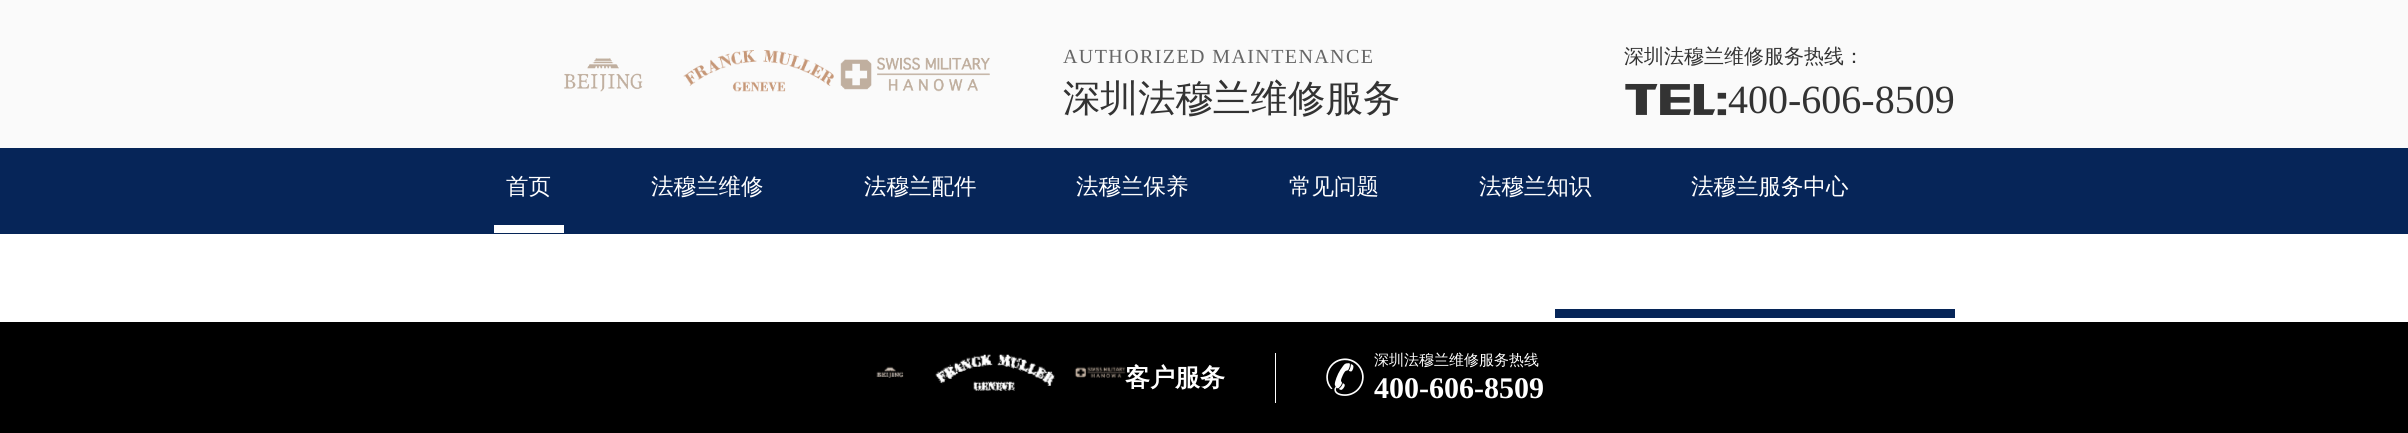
#include <cairo.h>
#include <math.h>
#include <stddef.h>


static void rgb(cairo_t *cr, int r, int g, int b)
{
	cairo_set_source_rgb(cr, r / 255.0, g / 255.0, b / 255.0);
}

static void face(cairo_t *cr, const char *family, double size, int italic, int bold)
{
	cairo_select_font_face(cr, family, italic ? CAIRO_FONT_SLANT_ITALIC : CAIRO_FONT_SLANT_NORMAL,
		bold ? CAIRO_FONT_WEIGHT_BOLD : CAIRO_FONT_WEIGHT_NORMAL);
	cairo_set_font_size(cr, size);
}

static void label(cairo_t *cr, double x, double y, const char *s)
{
	cairo_move_to(cr, x, y);
	cairo_show_text(cr, s);
}

static void tracked(cairo_t *cr, double x, double y, const char *s, double letter, double word)
{
	cairo_move_to(cr, x, y);
	while (*s) {
		char ch[5] = {0};
		int n = 0;
		do ch[n++] = *s++; while ((*s & 0xC0) == 0x80);
		cairo_show_text(cr, ch);
		cairo_rel_move_to(cr, letter + word * (*ch == ' '), 0);
	}
}

static void rect(cairo_t *cr, double x, double y, double w, double h)
{
	cairo_rectangle(cr, x, y, w, h);
	cairo_fill(cr);
}

static void image(cairo_t *cr, const char *path, double x, double y, double w, double h)
{
	cairo_surface_t *image = cairo_image_surface_create_from_png(path);
	cairo_save(cr);
	cairo_set_source_surface(cr, image, x, y);
	cairo_rectangle(cr, x, y, w, h);
	cairo_fill(cr);
	cairo_restore(cr);
	cairo_surface_destroy(image);
}

static void draw(cairo_t *cr) {
	rgb(cr, 255, 255, 255);
	cairo_paint(cr);
	rgb(cr, 250, 250, 250);
	rect(cr, 0, 0, 2408, 148);
	image(cr, "image0.png", 564, 58, 79, 34);
	image(cr, "image1.png", 683, 50, 151, 42);
	image(cr, "image2.png", 840, 57, 150, 35);
	face(cr, "Liberation Serif", 20, 0, 0);
	rgb(cr, 102, 102, 102);
	tracked(cr, 1063, 63, "AUTHORIZED MAINTENANCE", 1.4, 0);
	face(cr, "WenQuanYi Zen Hei Medium", 37.5, 0, 0);
	rgb(cr, 51, 51, 51);
	label(cr, 1063, 111, "深圳法穆兰维修服务");
	face(cr, "WenQuanYi Zen Hei Medium", 20, 0, 0);
	label(cr, 1624, 63, "深圳法穆兰维修服务热线：");
	face(cr, "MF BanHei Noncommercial", 45, 0, 0);
	label(cr, 1624, 113, "TEL:");
	face(cr, "Liberation Serif", 40, 0, 0);
	label(cr, 1728, 113, "400-606-8509");
	rgb(cr, 6, 37, 88);
	rect(cr, 0, 148, 2408, 86);
	rgb(cr, 255, 255, 255);
	rect(cr, 494, 225, 70, 8);
	face(cr, "WenQuanYi Zen Hei Medium", 22.5, 0, 0);
	label(cr, 506, 194, "首页");
	label(cr, 651, 194, "法穆兰维修");
	label(cr, 864, 194, "法穆兰配件");
	label(cr, 1076, 194, "法穆兰保养");
	label(cr, 1289, 194, "常见问题");
	label(cr, 1479, 194, "法穆兰知识");
	label(cr, 1691, 194, "法穆兰服务中心");
	rgb(cr, 6, 37, 88);
	rect(cr, 1555, 309, 400, 9);
	rgb(cr, 0, 0, 0);
	rect(cr, 0, 322, 2408, 111);
	image(cr, "image3.png", 876, 366, 28, 12);
	image(cr, "image4.png", 935, 354, 120, 37);
	image(cr, "image5.png", 1074, 366, 52, 12);
	face(cr, "WenQuanYi Zen Hei", 25, 0, 1);
	rgb(cr, 255, 255, 255);
	label(cr, 1125, 386, "客户服务");
	rect(cr, 1275, 353, 1, 50);
	image(cr, "image6.png", 1326, 358, 38, 38);
	face(cr, "WenQuanYi Zen Hei Medium", 15, 0, 0);
	label(cr, 1374, 365, "深圳法穆兰维修服务热线");
	face(cr, "Liberation Serif", 30, 0, 1);
	label(cr, 1374, 398, "400-606-8509");
}

int main(void) {
	cairo_surface_t *surface = cairo_image_surface_create(CAIRO_FORMAT_RGB24, 2408, 433);
	cairo_t *cr = cairo_create(surface);
	cairo_font_options_t *options = cairo_font_options_create();
	cairo_font_options_set_hint_metrics(options, CAIRO_HINT_METRICS_OFF);
	cairo_font_options_set_hint_style(options, CAIRO_HINT_STYLE_NONE);
	cairo_set_font_options(cr, options);
	cairo_set_miter_limit(cr, 4);
	draw(cr);
	cairo_surface_write_to_png(surface, "render.png");
	cairo_font_options_destroy(options);
	cairo_destroy(cr);
	cairo_surface_destroy(surface);
	return 0;
}
